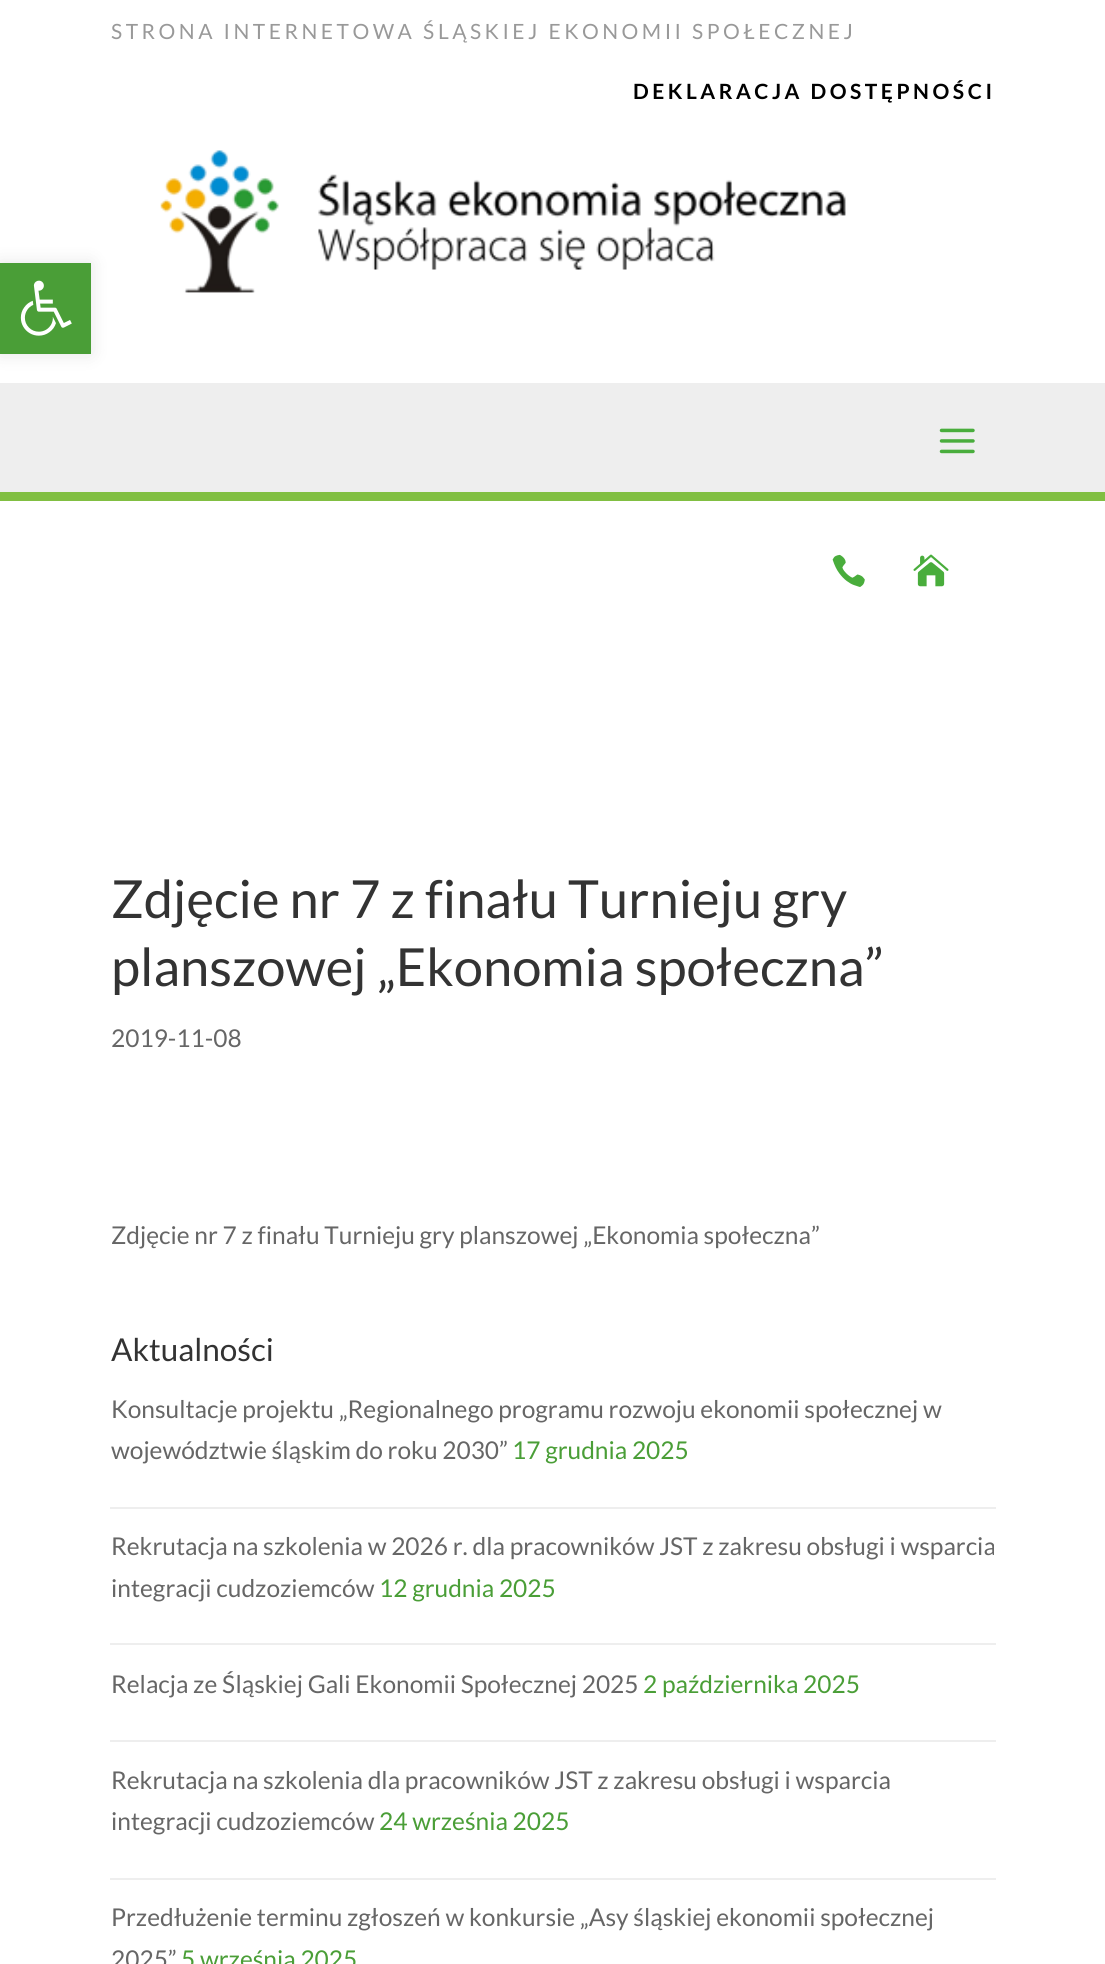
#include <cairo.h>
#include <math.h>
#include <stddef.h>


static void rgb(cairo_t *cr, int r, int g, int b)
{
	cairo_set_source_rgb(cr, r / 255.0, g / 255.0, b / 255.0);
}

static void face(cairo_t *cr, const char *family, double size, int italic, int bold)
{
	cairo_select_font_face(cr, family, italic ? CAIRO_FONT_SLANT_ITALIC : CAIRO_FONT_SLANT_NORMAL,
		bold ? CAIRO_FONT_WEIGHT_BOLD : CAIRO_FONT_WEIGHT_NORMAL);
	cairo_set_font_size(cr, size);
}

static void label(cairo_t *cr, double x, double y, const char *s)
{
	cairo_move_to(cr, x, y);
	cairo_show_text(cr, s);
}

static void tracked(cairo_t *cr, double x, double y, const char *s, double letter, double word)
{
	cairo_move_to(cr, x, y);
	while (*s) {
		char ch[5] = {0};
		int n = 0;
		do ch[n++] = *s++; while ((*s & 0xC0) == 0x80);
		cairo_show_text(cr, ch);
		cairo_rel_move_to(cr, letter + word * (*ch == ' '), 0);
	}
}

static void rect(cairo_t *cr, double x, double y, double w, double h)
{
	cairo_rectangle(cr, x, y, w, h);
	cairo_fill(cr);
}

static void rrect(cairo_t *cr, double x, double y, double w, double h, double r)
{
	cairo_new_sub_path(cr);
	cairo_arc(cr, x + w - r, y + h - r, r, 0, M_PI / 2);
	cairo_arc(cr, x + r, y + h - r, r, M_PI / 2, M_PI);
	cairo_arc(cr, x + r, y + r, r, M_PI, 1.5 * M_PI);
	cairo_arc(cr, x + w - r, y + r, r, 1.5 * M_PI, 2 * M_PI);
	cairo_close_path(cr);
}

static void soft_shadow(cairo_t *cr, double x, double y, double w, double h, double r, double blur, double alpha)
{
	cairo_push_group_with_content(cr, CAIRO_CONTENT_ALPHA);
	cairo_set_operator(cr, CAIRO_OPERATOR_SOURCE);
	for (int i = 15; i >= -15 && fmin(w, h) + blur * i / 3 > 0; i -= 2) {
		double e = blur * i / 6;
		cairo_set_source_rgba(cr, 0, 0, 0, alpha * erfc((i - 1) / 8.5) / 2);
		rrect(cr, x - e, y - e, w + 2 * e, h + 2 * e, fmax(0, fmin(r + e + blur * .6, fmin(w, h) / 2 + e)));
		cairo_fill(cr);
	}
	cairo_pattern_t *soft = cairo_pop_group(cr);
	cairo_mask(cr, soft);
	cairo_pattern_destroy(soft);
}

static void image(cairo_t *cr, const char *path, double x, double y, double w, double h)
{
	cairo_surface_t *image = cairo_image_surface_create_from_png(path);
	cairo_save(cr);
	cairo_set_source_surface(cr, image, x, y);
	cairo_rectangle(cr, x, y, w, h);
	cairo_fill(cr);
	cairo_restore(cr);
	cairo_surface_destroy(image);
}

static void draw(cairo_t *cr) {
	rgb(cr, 255, 255, 255);
	cairo_paint(cr);
	rgb(cr, 0, 0, 0);
	soft_shadow(cr, 0, 263, 91, 91, 0, 9, 0.1);
	rgb(cr, 74, 158, 55);
	rect(cr, 0, 263, 91, 91);
	image(cr, "image0.png", 20, 280, 52, 56);
	face(cr, "Lato", 21, 0, 0);
	rgb(cr, 153, 153, 153);
	tracked(cr, 111, 39, "STRONA INTERNETOWA ŚLĄSKIEJ EKONOMII SPOŁECZNEJ", 3.5, 0);
	face(cr, "Lato", 21, 0, 1);
	rgb(cr, 0, 0, 0);
	tracked(cr, 633, 99, "DEKLARACJA DOSTĘPNOŚCI", 3.5, 0);
	image(cr, "image1.png", 160, 150, 686, 143);
	rgb(cr, 238, 238, 238);
	rect(cr, 0, 383, 1105, 109);
	rgb(cr, 129, 191, 66);
	rect(cr, 0, 492, 1105, 9);
	image(cr, "image2.png", 939, 428, 36, 26);
	image(cr, "image3.png", 832, 554, 33, 33);
	image(cr, "image4.png", 913, 554, 36, 33);
	face(cr, "Lato", 52.5, 0, 0);
	rgb(cr, 51, 51, 51);
	label(cr, 111, 918, "Zdjęcie nr 7 z finału Turnieju gry");
	label(cr, 111, 986, "planszowej „Ekonomia społeczna”");
	face(cr, "Lato", 24.5, 0, 0);
	rgb(cr, 102, 102, 102);
	label(cr, 111, 1047, "2019-11-08");
	label(cr, 111, 1244, "Zdjęcie nr 7 z finału Turnieju gry planszowej „Ekonomia społeczna”");
	face(cr, "Lato", 31.5, 0, 0);
	rgb(cr, 51, 51, 51);
	label(cr, 111, 1361, "Aktualności");
	rgb(cr, 238, 238, 238);
	rect(cr, 110, 1507, 886, 2);
	face(cr, "Lato", 24.5, 0, 0);
	rgb(cr, 102, 102, 102);
	label(cr, 111, 1418, "Konsultacje projektu „Regionalnego programu rozwoju ekonomii społecznej w");
	label(cr, 111, 1459, "województwie śląskim do roku 2030”");
	rgb(cr, 74, 158, 55);
	label(cr, 512, 1459, "17 grudnia 2025");
	rgb(cr, 238, 238, 238);
	rect(cr, 110, 1643, 886, 2);
	rgb(cr, 102, 102, 102);
	label(cr, 111, 1555, "Rekrutacja na szkolenia w 2026 r. dla pracowników JST z zakresu obsługi i wsparcia");
	label(cr, 111, 1597, "integracji cudzoziemców");
	rgb(cr, 74, 158, 55);
	label(cr, 379, 1597, "12 grudnia 2025");
	rgb(cr, 238, 238, 238);
	rect(cr, 110, 1740, 886, 2);
	rgb(cr, 102, 102, 102);
	label(cr, 111, 1693, "Relacja ze Śląskiej Gali Ekonomii Społecznej 2025");
	rgb(cr, 74, 158, 55);
	label(cr, 643, 1693, "2 października 2025");
	rgb(cr, 238, 238, 238);
	rect(cr, 110, 1878, 886, 2);
	rgb(cr, 102, 102, 102);
	label(cr, 111, 1789, "Rekrutacja na szkolenia dla pracowników JST z zakresu obsługi i wsparcia");
	label(cr, 111, 1830, "integracji cudzoziemców");
	rgb(cr, 74, 158, 55);
	label(cr, 379, 1830, "24 września 2025");
	rgb(cr, 102, 102, 102);
	label(cr, 111, 1926, "Przedłużenie terminu zgłoszeń w konkursie „Asy śląskiej ekonomii społecznej");
	label(cr, 111, 1968, "2025”");
	rgb(cr, 74, 158, 55);
	label(cr, 181, 1968, "5 września 2025");
}

int main(void) {
	cairo_surface_t *surface = cairo_image_surface_create(CAIRO_FORMAT_RGB24, 1105, 1964);
	cairo_t *cr = cairo_create(surface);
	cairo_font_options_t *options = cairo_font_options_create();
	cairo_font_options_set_hint_metrics(options, CAIRO_HINT_METRICS_OFF);
	cairo_font_options_set_hint_style(options, CAIRO_HINT_STYLE_NONE);
	cairo_set_font_options(cr, options);
	cairo_set_miter_limit(cr, 4);
	draw(cr);
	cairo_surface_write_to_png(surface, "render.png");
	cairo_font_options_destroy(options);
	cairo_destroy(cr);
	cairo_surface_destroy(surface);
	return 0;
}
